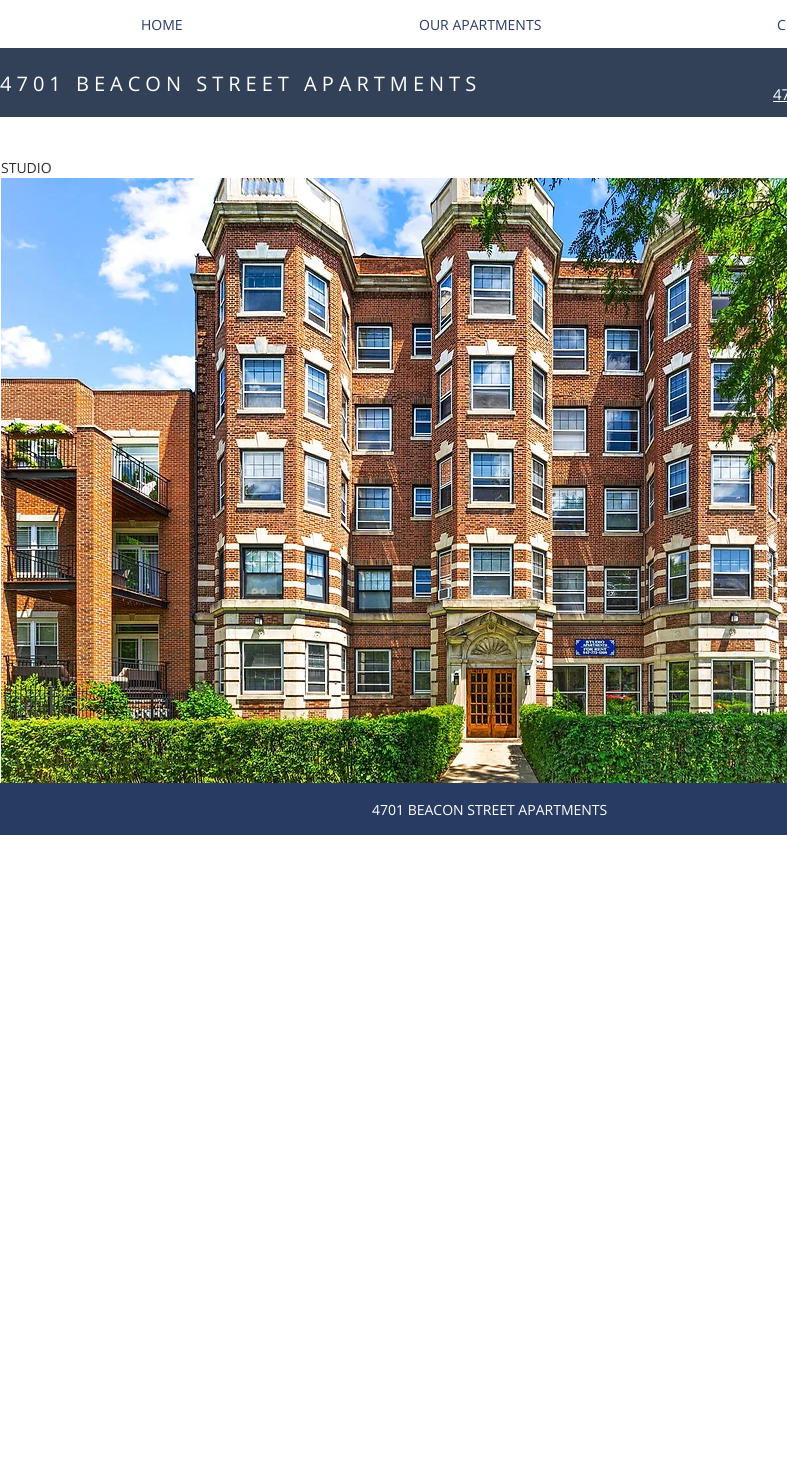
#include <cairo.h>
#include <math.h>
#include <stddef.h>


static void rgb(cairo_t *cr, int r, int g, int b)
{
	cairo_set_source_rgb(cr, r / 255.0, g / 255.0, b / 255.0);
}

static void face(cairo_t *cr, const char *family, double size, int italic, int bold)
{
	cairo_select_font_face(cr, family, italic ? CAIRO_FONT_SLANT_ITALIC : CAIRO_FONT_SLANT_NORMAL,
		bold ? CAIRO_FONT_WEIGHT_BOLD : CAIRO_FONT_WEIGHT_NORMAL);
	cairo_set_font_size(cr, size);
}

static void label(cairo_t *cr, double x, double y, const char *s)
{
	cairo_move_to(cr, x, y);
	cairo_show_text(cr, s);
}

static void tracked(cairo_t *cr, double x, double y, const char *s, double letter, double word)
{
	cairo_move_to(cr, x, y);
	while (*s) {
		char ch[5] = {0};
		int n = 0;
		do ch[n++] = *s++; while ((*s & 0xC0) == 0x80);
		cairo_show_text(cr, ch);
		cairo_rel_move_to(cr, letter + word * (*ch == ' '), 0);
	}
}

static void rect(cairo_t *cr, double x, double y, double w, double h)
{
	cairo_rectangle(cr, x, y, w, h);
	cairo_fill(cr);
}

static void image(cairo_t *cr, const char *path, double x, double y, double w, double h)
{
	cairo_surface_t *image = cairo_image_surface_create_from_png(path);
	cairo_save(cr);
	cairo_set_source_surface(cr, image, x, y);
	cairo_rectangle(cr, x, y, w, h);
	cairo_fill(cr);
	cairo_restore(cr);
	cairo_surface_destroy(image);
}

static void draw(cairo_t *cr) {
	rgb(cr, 255, 255, 255);
	cairo_paint(cr);
	face(cr, "Open Sans", 14, 0, 0);
	rgb(cr, 40, 59, 98);
	label(cr, 141, 30, "HOME");
	label(cr, 419, 30, "OUR APARTMENTS");
	label(cr, 777, 30, "C");
	rgb(cr, 50, 65, 88);
	rect(cr, 0, 48, 787, 69);
	face(cr, "Open Sans", 20, 0, 0);
	rgb(cr, 255, 255, 255);
	tracked(cr, 0, 91, "4701 BEACON STREET APARTMENTS", 5, 0);
	face(cr, "Open Sans", 15, 0, 0);
	label(cr, 773, 100, "47");
	rect(cr, 773, 101, 14, 1);
	face(cr, "Open Sans", 14, 0, 0);
	rgb(cr, 47, 46, 46);
	label(cr, 1, 173, "STUDIO");
	image(cr, "image0.png", 1, 178, 786, 605);
	face(cr, "futura", 16, 0, 0);
	rgb(cr, 66, 89, 28);
	label(cr, 11, 768, "4701 N. Beacon Street - Outside");
	rgb(cr, 40, 59, 98);
	rect(cr, 0, 783, 787, 52);
	face(cr, "Open Sans", 14, 0, 0);
	rgb(cr, 255, 255, 255);
	label(cr, 372, 815, "4701 BEACON STREET APARTMENTS");
}

int main(void) {
	cairo_surface_t *surface = cairo_image_surface_create(CAIRO_FORMAT_RGB24, 787, 1474);
	cairo_t *cr = cairo_create(surface);
	cairo_font_options_t *options = cairo_font_options_create();
	cairo_font_options_set_hint_metrics(options, CAIRO_HINT_METRICS_OFF);
	cairo_font_options_set_hint_style(options, CAIRO_HINT_STYLE_NONE);
	cairo_set_font_options(cr, options);
	cairo_set_miter_limit(cr, 4);
	draw(cr);
	cairo_surface_write_to_png(surface, "render.png");
	cairo_font_options_destroy(options);
	cairo_destroy(cr);
	cairo_surface_destroy(surface);
	return 0;
}
